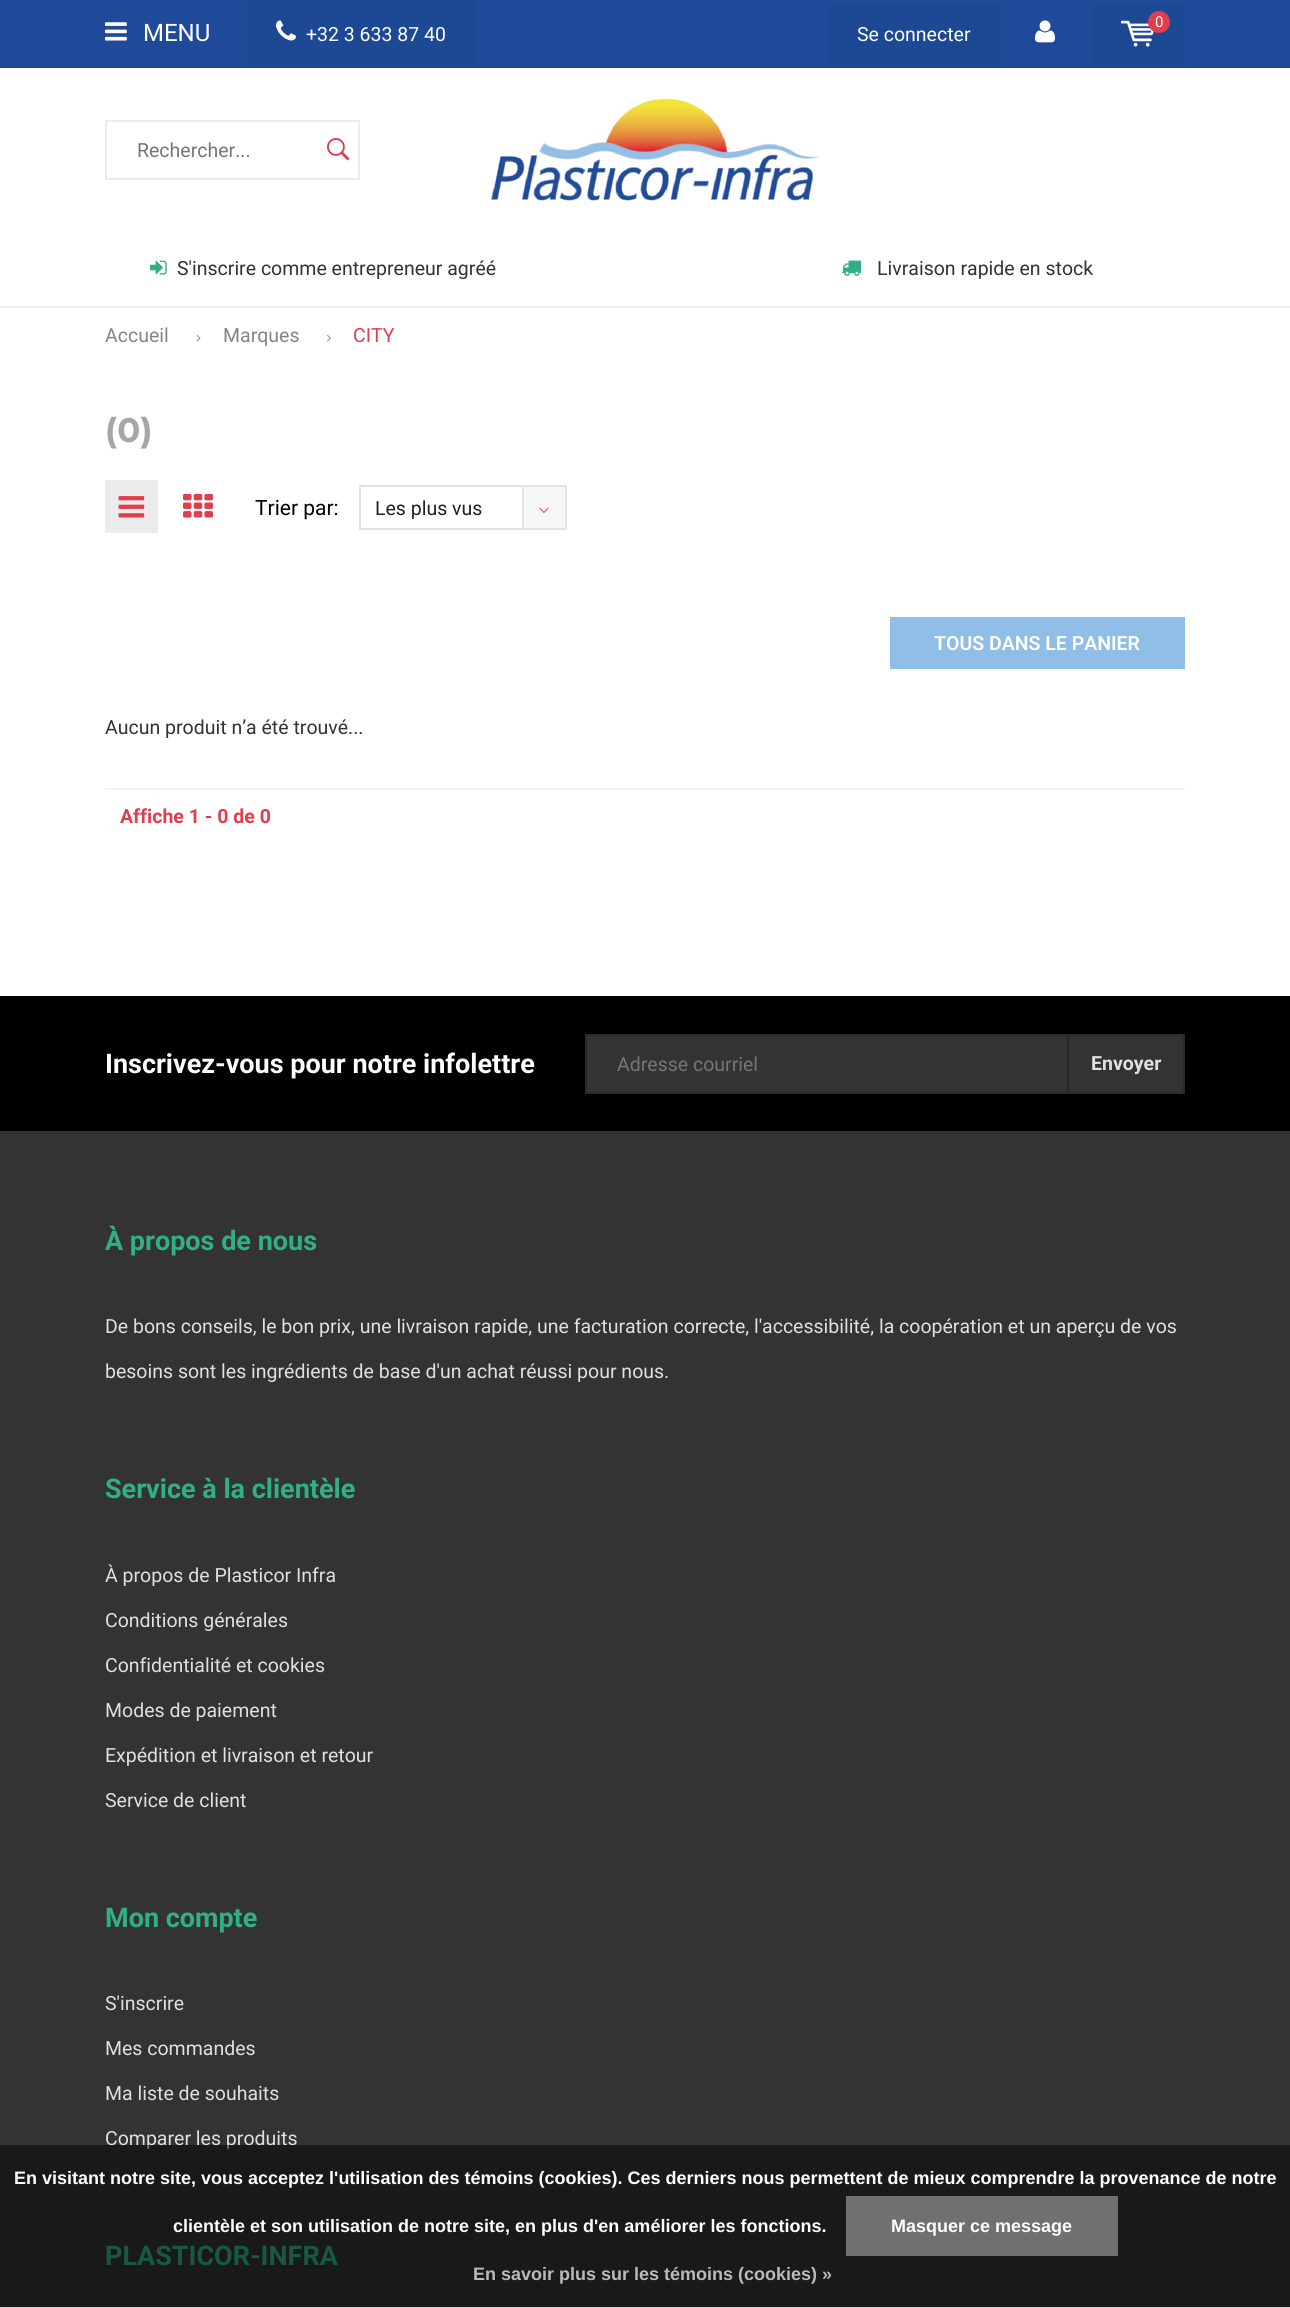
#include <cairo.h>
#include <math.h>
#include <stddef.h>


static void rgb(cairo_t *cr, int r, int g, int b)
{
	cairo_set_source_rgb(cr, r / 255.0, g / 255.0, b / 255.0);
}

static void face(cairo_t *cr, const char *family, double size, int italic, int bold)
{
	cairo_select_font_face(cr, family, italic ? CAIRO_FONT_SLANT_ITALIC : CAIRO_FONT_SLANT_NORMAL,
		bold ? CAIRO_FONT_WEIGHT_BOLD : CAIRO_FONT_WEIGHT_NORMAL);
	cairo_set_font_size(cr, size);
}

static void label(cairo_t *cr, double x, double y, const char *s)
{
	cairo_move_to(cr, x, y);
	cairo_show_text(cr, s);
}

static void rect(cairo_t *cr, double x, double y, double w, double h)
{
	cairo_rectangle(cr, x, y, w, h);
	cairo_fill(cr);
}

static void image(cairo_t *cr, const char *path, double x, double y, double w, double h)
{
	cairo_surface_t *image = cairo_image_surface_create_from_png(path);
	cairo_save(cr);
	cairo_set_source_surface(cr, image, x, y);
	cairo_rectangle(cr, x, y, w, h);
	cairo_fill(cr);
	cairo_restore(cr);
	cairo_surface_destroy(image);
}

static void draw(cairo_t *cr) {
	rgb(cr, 255, 255, 255);
	cairo_paint(cr);
	rgb(cr, 30, 74, 153);
	rect(cr, 0, 0, 1290, 68);
	image(cr, "image0.png", 105, 22, 22, 19);
	face(cr, "Roboto", 24, 0, 0);
	rgb(cr, 255, 255, 255);
	label(cr, 143, 41, "MENU");
	rgb(cr, 29, 72, 148);
	rect(cr, 246, 0, 230, 68);
	image(cr, "image1.png", 276, 20, 20, 21);
	face(cr, "Roboto", 19.5, 0, 0);
	rgb(cr, 255, 255, 255);
	label(cr, 306, 41, "+32 3 633 87 40");
	rgb(cr, 29, 72, 148);
	rect(cr, 828, 3, 173, 65);
	rgb(cr, 255, 255, 255);
	label(cr, 857, 41, "Se connecter");
	image(cr, "image2.png", 1035, 20, 20, 23);
	rgb(cr, 29, 72, 148);
	rect(cr, 1091, 3, 94, 65);
	image(cr, "image3.png", 1121, 20, 33, 27);
	rgb(cr, 224, 62, 76);
	cairo_arc(cr, 1159, 22, 11, 0, 2 * M_PI);
	cairo_fill(cr);
	face(cr, "Roboto", 15, 0, 0);
	rgb(cr, 255, 255, 255);
	label(cr, 1155, 27, "0");
	cairo_rectangle(cr, 106, 121, 253, 58);
	rgb(cr, 235, 235, 235);
	cairo_stroke(cr);
	face(cr, "Roboto", 19.5, 0, 0);
	rgb(cr, 117, 117, 117);
	label(cr, 137, 157, "Rechercher...");
	image(cr, "image4.png", 327, 138, 23, 23);
	image(cr, "image5.png", 491, 98, 328, 103);
	rgb(cr, 239, 239, 239);
	rect(cr, 0, 306, 1290, 2);
	image(cr, "image6.png", 150, 260, 17, 15);
	rgb(cr, 51, 51, 51);
	label(cr, 177, 275, "S'inscrire comme entrepreneur agréé");
	image(cr, "image7.png", 842, 260, 19, 16);
	label(cr, 877, 275, "Livraison rapide en stock");
	rgb(cr, 133, 133, 133);
	label(cr, 105, 342, "Accueil");
	image(cr, "image8.png", 196, 334, 5, 8);
	label(cr, 223, 342, "Marques");
	image(cr, "image9.png", 327, 334, 4, 8);
	rgb(cr, 224, 62, 76);
	label(cr, 353, 342, "CITY");
	face(cr, "Montserrat", 34, 0, 1);
	rgb(cr, 166, 166, 166);
	label(cr, 105, 442, "(0)");
	rgb(cr, 235, 235, 235);
	rect(cr, 105, 480, 53, 53);
	image(cr, "image10.png", 118, 496, 27, 22);
	image(cr, "image11.png", 183, 493, 30, 25);
	face(cr, "Roboto", 21, 0, 0);
	rgb(cr, 0, 0, 0);
	label(cr, 255, 515, "Trier par:");
	cairo_rectangle(cr, 360, 486, 206, 43);
	rgb(cr, 225, 225, 225);
	cairo_stroke(cr);
	face(cr, "Roboto", 19.5, 0, 0);
	rgb(cr, 33, 33, 33);
	label(cr, 375, 515, "Les plus vus");
	cairo_set_source_rgba(cr, 0.953, 0.953, 0.953, 0.8);
	rect(cr, 522, 485, 45, 45);
	cairo_rectangle(cr, 523, 486, 43, 43);
	cairo_set_source_rgba(cr, 0.882, 0.882, 0.882, 0.8);
	cairo_stroke(cr);
	image(cr, "image12.png", 539, 507, 10, 7);
	rgb(cr, 145, 190, 231);
	rect(cr, 890, 617, 295, 52);
	face(cr, "Roboto SemiBold", 19.5, 0, 0);
	rgb(cr, 255, 255, 255);
	label(cr, 934, 650, "TOUS DANS LE PANIER");
	face(cr, "Roboto", 19.5, 0, 0);
	rgb(cr, 51, 51, 51);
	label(cr, 105, 734, "Aucun produit n’a été trouvé...");
	rgb(cr, 243, 243, 243);
	rect(cr, 105, 788, 1080, 2);
	face(cr, "Roboto", 19.5, 0, 1);
	rgb(cr, 224, 62, 76);
	label(cr, 120, 823, "Affiche 1 - 0 de 0");
	rgb(cr, 51, 51, 51);
	rect(cr, 0, 1131, 1290, 1176);
	rgb(cr, 0, 0, 0);
	rect(cr, 0, 996, 1290, 135);
	face(cr, "Roboto", 27, 0, 1);
	rgb(cr, 255, 255, 255);
	label(cr, 105, 1073, "Inscrivez-vous pour notre infolettre");
	rgb(cr, 51, 51, 51);
	rect(cr, 587, 1036, 480, 56);
	cairo_rectangle(cr, 586, 1035, 598, 58);
	rgb(cr, 41, 41, 41);
	cairo_stroke(cr);
	face(cr, "Roboto", 19.5, 0, 0);
	rgb(cr, 117, 117, 117);
	label(cr, 617, 1071, "Adresse courriel");
	rgb(cr, 51, 51, 51);
	cairo_rectangle(cr, 1068, 1035, 116, 58);
	cairo_fill_preserve(cr);
	rgb(cr, 41, 41, 41);
	cairo_stroke(cr);
	face(cr, "Roboto", 19.5, 0, 1);
	rgb(cr, 224, 224, 224);
	label(cr, 1091, 1070, "Envoyer");
	face(cr, "Roboto", 27, 0, 1);
	rgb(cr, 48, 176, 135);
	label(cr, 105, 1250, "À propos de nous");
	face(cr, "Roboto", 19.5, 0, 0);
	rgb(cr, 224, 224, 224);
	label(cr, 105, 1333, "De bons conseils, le bon prix, une livraison rapide, une facturation correcte, l'accessibilité, la coopération et un aperçu de vos");
	label(cr, 105, 1378, "besoins sont les ingrédients de base d'un achat réussi pour nous.");
	face(cr, "Roboto", 27, 0, 1);
	rgb(cr, 48, 176, 135);
	label(cr, 105, 1498, "Service à la clientèle");
	face(cr, "Roboto", 19.5, 0, 0);
	rgb(cr, 224, 224, 224);
	label(cr, 105, 1582, "À propos de Plasticor Infra");
	label(cr, 105, 1627, "Conditions générales");
	label(cr, 105, 1672, "Confidentialité et cookies");
	label(cr, 105, 1717, "Modes de paiement");
	label(cr, 105, 1762, "Expédition et livraison et retour");
	label(cr, 105, 1807, "Service de client");
	face(cr, "Roboto", 27, 0, 1);
	rgb(cr, 48, 176, 135);
	label(cr, 105, 1927, "Mon compte");
	face(cr, "Roboto", 19.5, 0, 0);
	rgb(cr, 224, 224, 224);
	label(cr, 105, 2010, "S'inscrire");
	label(cr, 105, 2055, "Mes commandes");
	label(cr, 105, 2100, "Ma liste de souhaits");
	label(cr, 105, 2145, "Comparer les produits");
	face(cr, "Roboto", 27, 0, 1);
	rgb(cr, 48, 176, 135);
	label(cr, 105, 2265, "PLASTICOR-INFRA");
	cairo_set_source_rgba(cr, 0, 0, 0, 0.5);
	rect(cr, 0, 2145, 1290, 162);
	rgb(cr, 204, 204, 204);
	rect(cr, 0, 2307, 1290, 1);
	face(cr, "Liberation Sans", 18, 0, 1);
	rgb(cr, 255, 255, 255);
	label(cr, 14, 2184, "En visitant notre site, vous acceptez l'utilisation des témoins (cookies). Ces derniers nous permettent de mieux comprendre la provenance de notre");
	label(cr, 173, 2232, "clientèle et son utilisation de notre site, en plus d'en améliorer les fonctions.");
	rgb(cr, 112, 112, 112);
	rect(cr, 846, 2196, 272, 60);
	rgb(cr, 255, 255, 255);
	label(cr, 891, 2232, "Masquer ce message");
	rgb(cr, 186, 186, 186);
	label(cr, 473, 2280, "En savoir plus sur les témoins (cookies) »");
}

int main(void) {
	cairo_surface_t *surface = cairo_image_surface_create(CAIRO_FORMAT_RGB24, 1290, 2308);
	cairo_t *cr = cairo_create(surface);
	cairo_font_options_t *options = cairo_font_options_create();
	cairo_font_options_set_hint_metrics(options, CAIRO_HINT_METRICS_OFF);
	cairo_font_options_set_hint_style(options, CAIRO_HINT_STYLE_NONE);
	cairo_set_font_options(cr, options);
	cairo_set_miter_limit(cr, 4);
	draw(cr);
	cairo_surface_write_to_png(surface, "render.png");
	cairo_font_options_destroy(options);
	cairo_destroy(cr);
	cairo_surface_destroy(surface);
	return 0;
}
